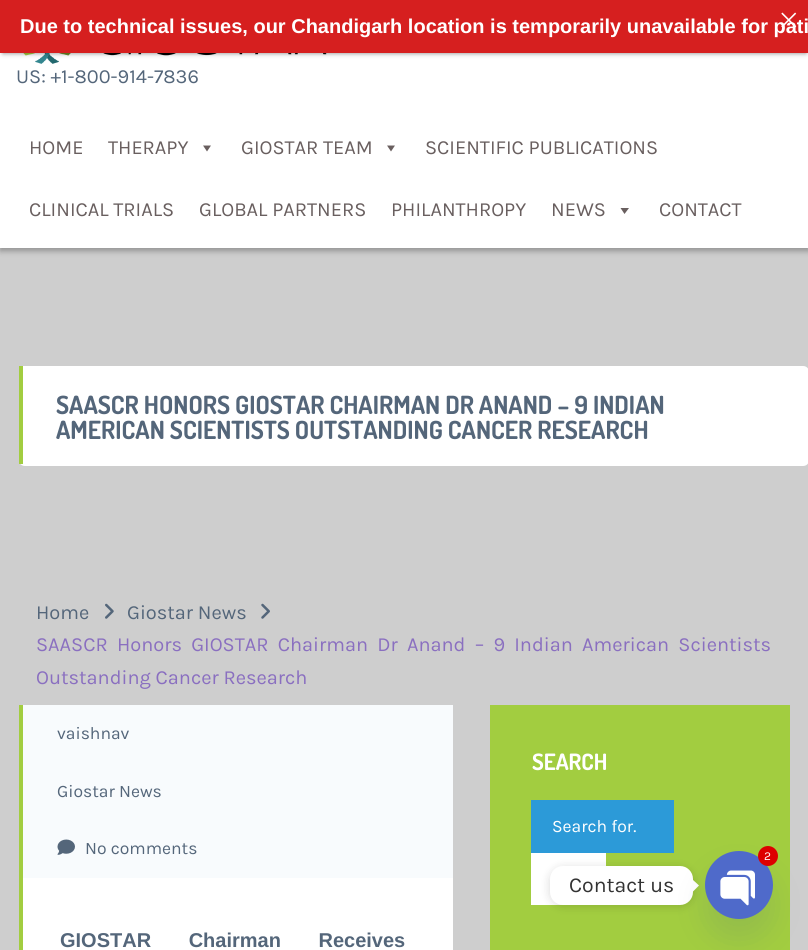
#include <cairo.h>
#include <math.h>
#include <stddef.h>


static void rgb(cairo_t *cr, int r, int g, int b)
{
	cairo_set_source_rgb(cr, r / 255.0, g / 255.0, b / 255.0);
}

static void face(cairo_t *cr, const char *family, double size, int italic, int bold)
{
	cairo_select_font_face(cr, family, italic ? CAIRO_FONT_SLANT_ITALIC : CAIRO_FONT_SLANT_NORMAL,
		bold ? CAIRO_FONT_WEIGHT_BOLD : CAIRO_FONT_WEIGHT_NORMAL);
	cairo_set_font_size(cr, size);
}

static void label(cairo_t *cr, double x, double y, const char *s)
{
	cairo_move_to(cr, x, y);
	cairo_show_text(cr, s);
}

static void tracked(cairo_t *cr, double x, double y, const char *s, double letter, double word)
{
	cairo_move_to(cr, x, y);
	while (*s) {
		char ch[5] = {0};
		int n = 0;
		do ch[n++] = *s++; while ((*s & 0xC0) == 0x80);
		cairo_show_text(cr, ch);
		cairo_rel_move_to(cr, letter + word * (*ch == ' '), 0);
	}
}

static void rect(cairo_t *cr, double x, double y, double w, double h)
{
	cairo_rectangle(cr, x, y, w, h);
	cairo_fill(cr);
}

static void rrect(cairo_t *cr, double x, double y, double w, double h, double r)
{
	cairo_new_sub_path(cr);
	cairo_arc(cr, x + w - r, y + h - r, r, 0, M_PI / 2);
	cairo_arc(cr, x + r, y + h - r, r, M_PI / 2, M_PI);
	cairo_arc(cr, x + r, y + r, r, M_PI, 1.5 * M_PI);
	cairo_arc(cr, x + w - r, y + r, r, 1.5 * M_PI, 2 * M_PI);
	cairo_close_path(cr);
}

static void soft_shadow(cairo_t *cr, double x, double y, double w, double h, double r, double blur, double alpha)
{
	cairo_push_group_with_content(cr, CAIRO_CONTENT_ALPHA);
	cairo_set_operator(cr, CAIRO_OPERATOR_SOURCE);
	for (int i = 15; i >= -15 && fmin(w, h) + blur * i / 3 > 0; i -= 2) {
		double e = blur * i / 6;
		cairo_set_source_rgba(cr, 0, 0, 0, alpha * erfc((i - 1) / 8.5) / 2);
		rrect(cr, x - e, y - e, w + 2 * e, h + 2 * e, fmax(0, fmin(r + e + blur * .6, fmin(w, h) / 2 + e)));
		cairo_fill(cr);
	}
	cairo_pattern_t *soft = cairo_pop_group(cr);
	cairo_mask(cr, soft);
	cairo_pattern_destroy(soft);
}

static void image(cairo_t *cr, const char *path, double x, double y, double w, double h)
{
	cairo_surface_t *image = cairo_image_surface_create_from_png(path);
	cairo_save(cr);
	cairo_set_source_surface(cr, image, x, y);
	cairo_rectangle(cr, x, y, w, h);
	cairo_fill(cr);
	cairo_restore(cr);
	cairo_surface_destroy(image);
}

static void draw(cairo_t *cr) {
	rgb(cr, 206, 206, 206);
	cairo_paint(cr);
	rgb(cr, 0, 0, 0);
	soft_shadow(cr, 0, 4, 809, 247, 0, 3, 0.3);
	rgb(cr, 255, 255, 255);
	rect(cr, 0, 53, 808, 195);
	image(cr, "image1.png", 23, 53, 304, 11);
	rgb(cr, 0, 0, 0);
	soft_shadow(cr, 3, 5, 803, 48, 0, 2.5, 0.5);
	rgb(cr, 214, 31, 31);
	rect(cr, 0, 0, 808, 53);
	face(cr, "Liberation Sans", 20, 0, 1);
	rgb(cr, 255, 255, 255);
	label(cr, 20, 33, "Due to technical issues, our Chandigarh location is temporarily unavailable for pati");
	image(cr, "image0.png", 781, 12, 16, 16);
	face(cr, "Karla", 20, 0, 0);
	rgb(cr, 84, 102, 122);
	label(cr, 16, 83, "US: +1-800-914-7836");
	rgb(cr, 105, 95, 95);
	label(cr, 29, 154, "HOME");
	label(cr, 108, 154, "THERAPY");
	cairo_new_path(cr);
	cairo_move_to(cr, 211, 145.5);
	cairo_line_to(cr, 207, 151.5);
	cairo_line_to(cr, 203, 145.5);
	cairo_close_path(cr);
	cairo_fill(cr);
	label(cr, 241, 154, "GIOSTAR TEAM");
	cairo_new_path(cr);
	cairo_move_to(cr, 395, 145.5);
	cairo_line_to(cr, 391, 151.5);
	cairo_line_to(cr, 387, 145.5);
	cairo_close_path(cr);
	cairo_fill(cr);
	label(cr, 425, 154, "SCIENTIFIC PUBLICATIONS");
	label(cr, 29, 216, "CLINICAL TRIALS");
	label(cr, 199, 216, "GLOBAL PARTNERS");
	label(cr, 391, 216, "PHILANTHROPY");
	label(cr, 551, 216, "NEWS");
	cairo_new_path(cr);
	cairo_move_to(cr, 629, 208);
	cairo_line_to(cr, 624.5, 214);
	cairo_line_to(cr, 620.5, 208);
	cairo_close_path(cr);
	cairo_fill(cr);
	label(cr, 659, 216, "CONTACT");
	rgb(cr, 255, 255, 255);
	cairo_new_path(cr);
	cairo_move_to(cr, 19, 366);
	cairo_line_to(cr, 803, 366);
	cairo_curve_to(cr, 806.5, 366, 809, 368.5, 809, 372);
	cairo_line_to(cr, 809, 460);
	cairo_curve_to(cr, 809, 463.5, 806.5, 466, 803, 466);
	cairo_line_to(cr, 25, 466);
	cairo_curve_to(cr, 21.5, 466, 19, 463.5, 19, 460);
	cairo_close_path(cr);
	cairo_fill(cr);
	rgb(cr, 162, 205, 64);
	rect(cr, 19, 366, 4, 98);
	face(cr, "Dosis", 25, 0, 1);
	rgb(cr, 84, 102, 122);
	label(cr, 56, 414, "SAASCR HONORS GIOSTAR CHAIRMAN DR ANAND – 9 INDIAN");
	label(cr, 56, 439, "AMERICAN SCIENTISTS OUTSTANDING CANCER RESEARCH");
	face(cr, "Karla", 20, 0, 0);
	label(cr, 36, 619, "Home");
	image(cr, "image2.png", 105, 603, 9, 16);
	label(cr, 127, 619, "Giostar News");
	image(cr, "image3.png", 261, 603, 9, 16);
	rgb(cr, 138, 111, 192);
	tracked(cr, 36, 651, "SAASCR Honors GIOSTAR Chairman Dr Anand – 9 Indian American Scientists", 0, 4.5);
	label(cr, 36, 684, "Outstanding Cancer Research");
	rgb(cr, 162, 205, 64);
	rect(cr, 19, 705, 4, 245);
	rgb(cr, 248, 251, 253);
	rect(cr, 23, 705, 430, 173);
	face(cr, "Karla", 17.5, 0, 0);
	rgb(cr, 84, 102, 122);
	label(cr, 57, 739, "vaishnav");
	label(cr, 57, 797, "Giostar News");
	image(cr, "image4.png", 57, 839, 18, 16);
	label(cr, 85, 854, "No comments");
	rgb(cr, 255, 255, 255);
	rect(cr, 23, 878, 430, 72);
	face(cr, "Liberation Sans", 20, 0, 1);
	rgb(cr, 84, 102, 122);
	tracked(cr, 60, 947, "GIOSTAR Chairman Receives", 0, 32);
	rgb(cr, 162, 205, 64);
	rect(cr, 490, 705, 300, 245);
	face(cr, "Dosis", 22.5, 0, 1);
	rgb(cr, 255, 255, 255);
	label(cr, 532, 770, "SEARCH");
	rgb(cr, 44, 154, 216);
	rect(cr, 531, 800, 143, 53);
	face(cr, "Karla", 17.5, 0, 0);
	rgb(cr, 255, 255, 255);
	label(cr, 552, 832, "Search for.");
	rect(cr, 531, 853, 75, 52);
	rgb(cr, 0, 0, 0);
	soft_shadow(cr, 550, 868, 143, 38, 13, 5, 0.15);
	rgb(cr, 255, 255, 255);
	rrect(cr, 550, 866, 143, 39, 13);
	cairo_fill(cr);
	cairo_new_path(cr);
	cairo_move_to(cr, 692.5, 892);
	cairo_line_to(cr, 692.5, 879.5);
	cairo_line_to(cr, 699, 885.5);
	cairo_close_path(cr);
	cairo_fill(cr);
	rgb(cr, 73, 104, 126);
	soft_shadow(cr, 705, 871, 68, 68, 34, 15, 0.16);
	image(cr, "image5.png", 705, 851, 68, 68);
	rgb(cr, 221, 0, 0);
	cairo_arc(cr, 768, 856, 10, 0, 2 * M_PI);
	cairo_fill(cr);
	face(cr, "Karla", 12, 0, 0);
	rgb(cr, 255, 255, 255);
	label(cr, 764, 860, "2");
	face(cr, "Karla", 21.25, 0, 0);
	rgb(cr, 51, 51, 51);
	label(cr, 569, 892, "Contact us");
}

int main(void) {
	cairo_surface_t *surface = cairo_image_surface_create(CAIRO_FORMAT_RGB24, 808, 950);
	cairo_t *cr = cairo_create(surface);
	cairo_font_options_t *options = cairo_font_options_create();
	cairo_font_options_set_hint_metrics(options, CAIRO_HINT_METRICS_OFF);
	cairo_font_options_set_hint_style(options, CAIRO_HINT_STYLE_NONE);
	cairo_set_font_options(cr, options);
	cairo_set_miter_limit(cr, 4);
	draw(cr);
	cairo_surface_write_to_png(surface, "render.png");
	cairo_font_options_destroy(options);
	cairo_destroy(cr);
	cairo_surface_destroy(surface);
	return 0;
}
